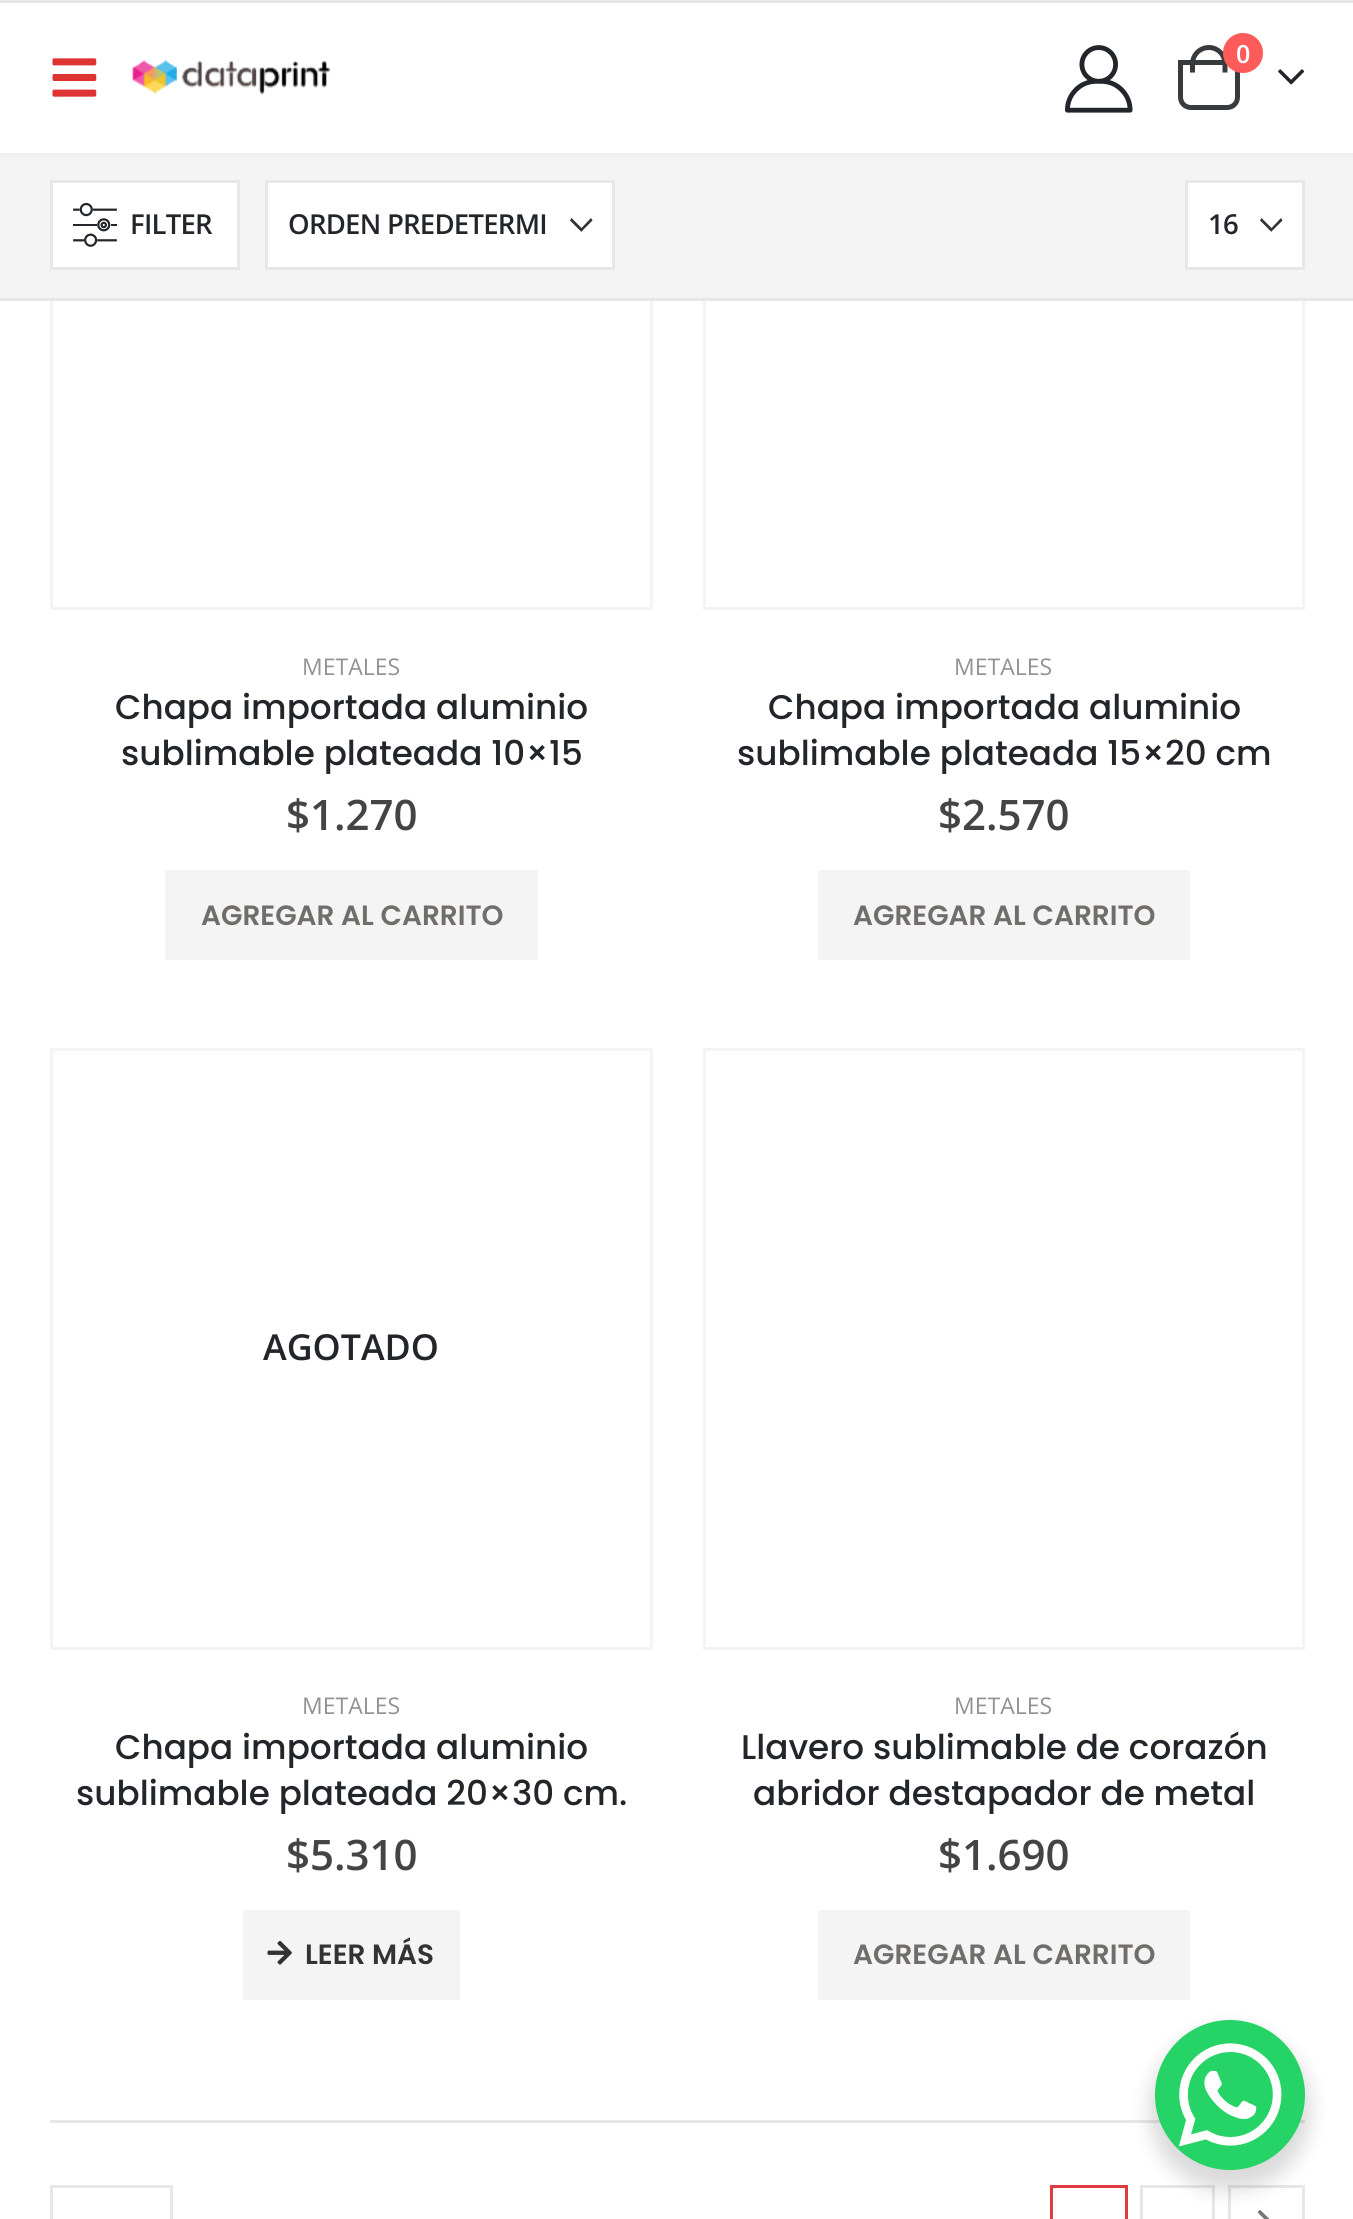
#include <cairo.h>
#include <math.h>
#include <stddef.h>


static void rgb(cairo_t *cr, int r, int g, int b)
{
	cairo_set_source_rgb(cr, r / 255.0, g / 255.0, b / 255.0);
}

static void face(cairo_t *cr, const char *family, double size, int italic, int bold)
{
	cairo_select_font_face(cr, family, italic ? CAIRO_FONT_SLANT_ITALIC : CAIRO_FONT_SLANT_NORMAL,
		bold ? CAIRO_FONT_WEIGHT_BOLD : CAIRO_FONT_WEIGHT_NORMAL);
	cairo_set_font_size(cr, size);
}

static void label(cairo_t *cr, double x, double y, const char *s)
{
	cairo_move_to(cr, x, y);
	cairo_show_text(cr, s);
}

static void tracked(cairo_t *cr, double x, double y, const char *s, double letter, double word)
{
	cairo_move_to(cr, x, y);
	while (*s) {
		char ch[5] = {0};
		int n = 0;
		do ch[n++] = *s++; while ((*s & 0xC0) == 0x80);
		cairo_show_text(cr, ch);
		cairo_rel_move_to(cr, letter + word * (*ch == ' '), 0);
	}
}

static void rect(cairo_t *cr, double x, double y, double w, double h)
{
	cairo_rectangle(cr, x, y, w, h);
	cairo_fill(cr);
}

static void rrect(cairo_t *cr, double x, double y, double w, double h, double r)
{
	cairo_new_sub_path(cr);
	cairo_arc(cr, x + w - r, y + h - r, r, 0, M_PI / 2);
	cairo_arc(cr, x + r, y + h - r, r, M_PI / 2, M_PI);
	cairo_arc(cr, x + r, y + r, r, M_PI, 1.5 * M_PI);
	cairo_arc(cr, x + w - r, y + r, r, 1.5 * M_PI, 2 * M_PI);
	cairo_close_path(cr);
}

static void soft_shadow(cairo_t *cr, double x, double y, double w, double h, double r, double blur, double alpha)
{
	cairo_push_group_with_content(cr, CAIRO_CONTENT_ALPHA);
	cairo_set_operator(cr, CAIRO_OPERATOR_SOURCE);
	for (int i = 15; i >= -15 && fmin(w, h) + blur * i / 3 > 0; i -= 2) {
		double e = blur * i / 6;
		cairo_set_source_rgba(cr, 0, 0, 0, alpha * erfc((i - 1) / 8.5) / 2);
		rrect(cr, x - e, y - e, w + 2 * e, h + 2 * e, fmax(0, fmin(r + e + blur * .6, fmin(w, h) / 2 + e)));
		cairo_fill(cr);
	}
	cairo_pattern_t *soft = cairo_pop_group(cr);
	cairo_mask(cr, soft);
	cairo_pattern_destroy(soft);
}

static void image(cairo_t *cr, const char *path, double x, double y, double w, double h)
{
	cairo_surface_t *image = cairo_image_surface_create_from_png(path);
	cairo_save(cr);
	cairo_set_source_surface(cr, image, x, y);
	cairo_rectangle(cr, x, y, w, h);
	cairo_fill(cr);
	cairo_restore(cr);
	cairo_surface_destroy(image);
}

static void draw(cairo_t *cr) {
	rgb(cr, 255, 255, 255);
	cairo_paint(cr);
	cairo_rectangle(cr, 51.5, 9.5, 600, 599);
	rgb(cr, 244, 244, 244);
	cairo_set_line_width(cr, 3);
	cairo_stroke(cr);
	cairo_rectangle(cr, 704.5, 9.5, 599, 599);
	cairo_stroke(cr);
	rect(cr, 0, 153, 1353, 145);
	rgb(cr, 0, 0, 0);
	soft_shadow(cr, 0, 0, 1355, 153, 0, 4, 0.06);
	rgb(cr, 255, 255, 255);
	rect(cr, 0, 3, 1353, 150);
	rgb(cr, 231, 231, 231);
	rect(cr, 0, 0, 1353, 3);
	image(cr, "image0.png", 1065, 45, 68, 68);
	cairo_new_path(cr);
	cairo_move_to(cr, 1180.5, 62.5);
	cairo_line_to(cr, 1237.5, 62.5);
	cairo_line_to(cr, 1237.5, 97);
	cairo_curve_to(cr, 1237.5, 103, 1233, 107.5, 1227, 107.5);
	cairo_line_to(cr, 1191, 107.5);
	cairo_curve_to(cr, 1185, 107.5, 1180.5, 103, 1180.5, 97);
	cairo_close_path(cr);
	rgb(cr, 56, 59, 62);
	cairo_set_line_width(cr, 5);
	cairo_stroke(cr);
	cairo_set_fill_rule(cr, CAIRO_FILL_RULE_EVEN_ODD);
	cairo_new_path(cr);
	cairo_move_to(cr, 1209, 45);
	cairo_curve_to(cr, 1219, 45, 1227.5, 53.5, 1227.5, 64);
	cairo_line_to(cr, 1227.5, 72.5);
	cairo_line_to(cr, 1190, 72.5);
	cairo_line_to(cr, 1190, 64);
	cairo_curve_to(cr, 1190, 53.5, 1198.5, 45, 1209, 45);
	cairo_close_path(cr);
	cairo_move_to(cr, 1209, 50);
	cairo_curve_to(cr, 1216.5, 50, 1222.5, 56, 1222.5, 64);
	cairo_line_to(cr, 1222.5, 72.5);
	cairo_line_to(cr, 1195, 72.5);
	cairo_line_to(cr, 1195, 64);
	cairo_curve_to(cr, 1195, 56, 1201, 50, 1209, 50);
	cairo_close_path(cr);
	cairo_fill(cr);
	rgb(cr, 255, 91, 91);
	cairo_arc(cr, 1243, 53, 20, 0, 2 * M_PI);
	cairo_fill(cr);
	face(cr, "Open Sans SemiBold", 25, 0, 0);
	rgb(cr, 255, 255, 255);
	label(cr, 1236, 63, "0");
	image(cr, "image1.png", 1278, 69, 27, 16);
	image(cr, "image2.png", 52, 58, 45, 39);
	image(cr, "image3.png", 131, 60, 199, 35);
	rgb(cr, 231, 231, 231);
	rect(cr, 0, 298, 1353, 3);
	rgb(cr, 255, 255, 255);
	cairo_rectangle(cr, 51.5, 181.5, 187, 87);
	cairo_fill_preserve(cr);
	rgb(cr, 231, 231, 231);
	cairo_set_line_width(cr, 3);
	cairo_stroke(cr);
	image(cr, "image4.png", 73, 202, 44, 45);
	face(cr, "Open Sans SemiBold", 27.5, 0, 0);
	rgb(cr, 34, 37, 41);
	tracked(cr, 130, 234, "FILTER", -0.75, 0);
	rgb(cr, 255, 255, 255);
	rect(cr, 268, 183, 344, 84);
	rgb(cr, 51, 51, 51);
	cairo_new_path(cr);
	cairo_move_to(cr, 581.5, 231.5);
	cairo_line_to(cr, 592.5, 220.5);
	cairo_line_to(cr, 591, 218);
	cairo_line_to(cr, 581.5, 228);
	cairo_line_to(cr, 571.5, 218);
	cairo_line_to(cr, 570, 220.5);
	cairo_line_to(cr, 581.5, 232);
	cairo_close_path(cr);
	cairo_fill(cr);
	cairo_rectangle(cr, 266.5, 181.5, 347, 87);
	rgb(cr, 231, 231, 231);
	cairo_stroke(cr);
	rgb(cr, 34, 37, 41);
	tracked(cr, 288, 234, "ORDEN PREDETERMI", -0.75, 0);
	rgb(cr, 255, 255, 255);
	rect(cr, 1188, 183, 114, 84);
	rgb(cr, 51, 51, 51);
	cairo_new_path(cr);
	cairo_move_to(cr, 1271.5, 231.5);
	cairo_line_to(cr, 1282.5, 220.5);
	cairo_line_to(cr, 1281, 218);
	cairo_line_to(cr, 1271.5, 228);
	cairo_line_to(cr, 1261.5, 218);
	cairo_line_to(cr, 1260, 220.5);
	cairo_line_to(cr, 1271.5, 232);
	cairo_close_path(cr);
	cairo_fill(cr);
	cairo_rectangle(cr, 1186.5, 181.5, 117, 87);
	rgb(cr, 231, 231, 231);
	cairo_stroke(cr);
	rgb(cr, 34, 37, 41);
	tracked(cr, 1208, 234, "16", -0.75, 0);
	face(cr, "Open Sans", 23, 0, 0);
	rgb(cr, 146, 146, 146);
	label(cr, 302, 675, "METALES");
	face(cr, "Poppins Medium", 34.2, 0, 0);
	rgb(cr, 34, 37, 41);
	label(cr, 115, 719, "Chapa importada aluminio");
	label(cr, 121, 765, "sublimable plateada 10×15");
	face(cr, "Open Sans SemiBold", 42, 0, 0);
	rgb(cr, 68, 68, 68);
	label(cr, 286, 830, "$1.270");
	rgb(cr, 244, 244, 244);
	rect(cr, 165, 870, 373, 90);
	face(cr, "Poppins SemiBold", 27.9, 0, 0);
	rgb(cr, 111, 110, 107);
	label(cr, 201, 925, "AGREGAR AL CARRITO");
	face(cr, "Open Sans", 23, 0, 0);
	rgb(cr, 146, 146, 146);
	label(cr, 954, 675, "METALES");
	face(cr, "Poppins Medium", 34.2, 0, 0);
	rgb(cr, 34, 37, 41);
	label(cr, 768, 719, "Chapa importada aluminio");
	label(cr, 737, 765, "sublimable plateada 15×20 cm");
	face(cr, "Open Sans SemiBold", 42, 0, 0);
	rgb(cr, 68, 68, 68);
	label(cr, 938, 830, "$2.570");
	rgb(cr, 244, 244, 244);
	rect(cr, 818, 870, 372, 90);
	face(cr, "Poppins SemiBold", 27.9, 0, 0);
	rgb(cr, 111, 110, 107);
	label(cr, 853, 925, "AGREGAR AL CARRITO");
	cairo_rectangle(cr, 51.5, 1049.5, 600, 599);
	rgb(cr, 244, 244, 244);
	cairo_stroke(cr);
	face(cr, "Open Sans SemiBold", 35.75, 0, 0);
	rgb(cr, 34, 37, 41);
	label(cr, 263, 1360, "AGOTADO");
	face(cr, "Open Sans", 23, 0, 0);
	rgb(cr, 146, 146, 146);
	label(cr, 302, 1714, "METALES");
	face(cr, "Poppins Medium", 34.2, 0, 0);
	rgb(cr, 34, 37, 41);
	label(cr, 115, 1759, "Chapa importada aluminio");
	label(cr, 76, 1805, "sublimable plateada 20×30 cm.");
	face(cr, "Open Sans SemiBold", 42, 0, 0);
	rgb(cr, 68, 68, 68);
	label(cr, 286, 1870, "$5.310");
	rgb(cr, 244, 244, 244);
	rect(cr, 243, 1910, 217, 90);
	image(cr, "image5.png", 267, 1940, 25, 25);
	face(cr, "Poppins SemiBold", 27.9, 0, 0);
	rgb(cr, 51, 51, 51);
	label(cr, 305, 1964, "LEER MÁS");
	cairo_rectangle(cr, 704.5, 1049.5, 599, 599);
	rgb(cr, 244, 244, 244);
	cairo_stroke(cr);
	face(cr, "Open Sans", 23, 0, 0);
	rgb(cr, 146, 146, 146);
	label(cr, 954, 1714, "METALES");
	face(cr, "Poppins Medium", 34.2, 0, 0);
	rgb(cr, 34, 37, 41);
	label(cr, 741, 1759, "Llavero sublimable de corazón");
	label(cr, 753, 1805, "abridor destapador de metal");
	face(cr, "Open Sans SemiBold", 42, 0, 0);
	rgb(cr, 68, 68, 68);
	label(cr, 938, 1870, "$1.690");
	rgb(cr, 244, 244, 244);
	rect(cr, 818, 1910, 372, 90);
	face(cr, "Poppins SemiBold", 27.9, 0, 0);
	rgb(cr, 111, 110, 107);
	label(cr, 853, 1964, "AGREGAR AL CARRITO");
	rgb(cr, 231, 231, 231);
	rect(cr, 50, 2120, 1255, 3);
	cairo_rectangle(cr, 51.5, 2186.5, 120, 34);
	cairo_stroke(cr);
	cairo_rectangle(cr, 1051.5, 2186.5, 75, 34);
	rgb(cr, 225, 59, 63);
	cairo_stroke(cr);
	cairo_rectangle(cr, 1141.5, 2186.5, 72, 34);
	rgb(cr, 231, 231, 231);
	cairo_stroke(cr);
	cairo_rectangle(cr, 1229.5, 2186.5, 74, 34);
	cairo_stroke(cr);
	image(cr, "image6.png", 1257, 2210, 13, 9);
	rgb(cr, 0, 0, 0);
	soft_shadow(cr, 1150, 2030, 160, 160, 80, 10, 0.15);
	rgb(cr, 37, 211, 102);
	cairo_arc(cr, 1230, 2095, 75, 0, 2 * M_PI);
	cairo_fill(cr);
	image(cr, "image7.png", 1178, 2043, 104, 104);
}

int main(void) {
	cairo_surface_t *surface = cairo_image_surface_create(CAIRO_FORMAT_RGB24, 1353, 2219);
	cairo_t *cr = cairo_create(surface);
	cairo_font_options_t *options = cairo_font_options_create();
	cairo_font_options_set_hint_metrics(options, CAIRO_HINT_METRICS_OFF);
	cairo_font_options_set_hint_style(options, CAIRO_HINT_STYLE_NONE);
	cairo_set_font_options(cr, options);
	cairo_set_miter_limit(cr, 4);
	draw(cr);
	cairo_surface_write_to_png(surface, "render.png");
	cairo_font_options_destroy(options);
	cairo_destroy(cr);
	cairo_surface_destroy(surface);
	return 0;
}
